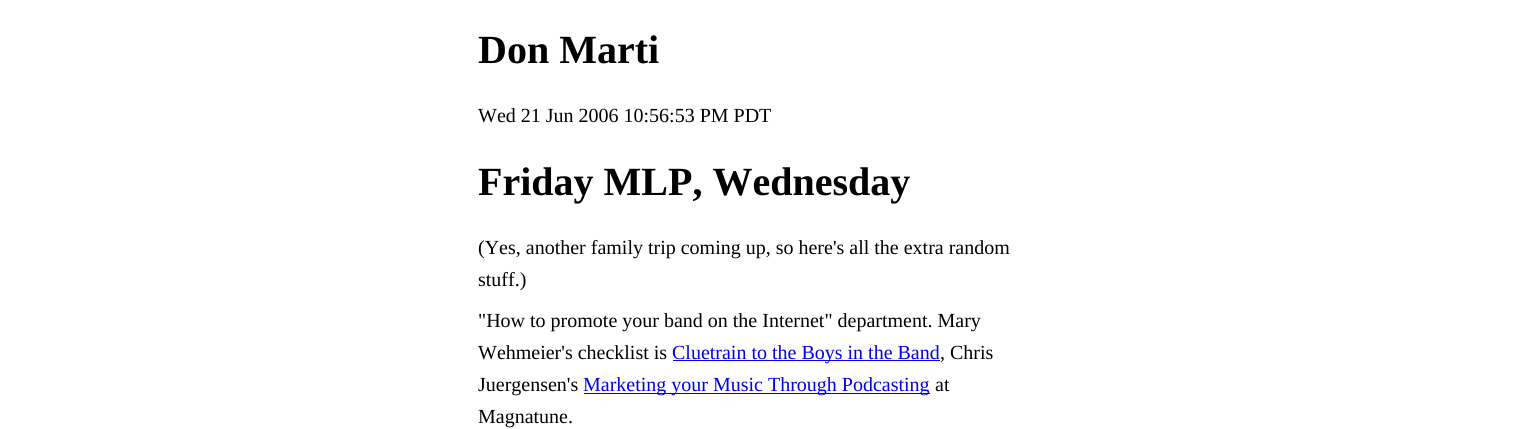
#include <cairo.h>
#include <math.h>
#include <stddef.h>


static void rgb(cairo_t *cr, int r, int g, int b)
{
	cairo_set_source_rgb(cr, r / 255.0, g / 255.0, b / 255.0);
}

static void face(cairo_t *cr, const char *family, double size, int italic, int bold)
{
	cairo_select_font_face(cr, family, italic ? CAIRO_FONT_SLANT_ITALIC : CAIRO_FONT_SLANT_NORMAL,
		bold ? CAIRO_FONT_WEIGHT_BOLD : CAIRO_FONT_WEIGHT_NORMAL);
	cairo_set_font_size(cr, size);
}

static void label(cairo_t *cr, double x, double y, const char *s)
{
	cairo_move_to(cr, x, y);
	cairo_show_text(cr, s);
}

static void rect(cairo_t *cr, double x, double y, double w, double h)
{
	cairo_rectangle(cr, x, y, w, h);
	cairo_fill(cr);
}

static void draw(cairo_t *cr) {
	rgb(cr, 255, 255, 255);
	cairo_paint(cr);
	face(cr, "Liberation Serif", 40, 0, 1);
	rgb(cr, 0, 0, 0);
	label(cr, 478, 63, "Don Marti");
	face(cr, "Liberation Serif", 20, 0, 0);
	label(cr, 478, 122, "Wed 21 Jun 2006 10:56:53 PM PDT");
	face(cr, "Liberation Serif", 40, 0, 1);
	label(cr, 478, 195, "Friday MLP, Wednesday");
	face(cr, "Liberation Serif", 20, 0, 0);
	label(cr, 478, 254, "(Yes, another family trip coming up, so here's all the extra random");
	label(cr, 478, 286, "stuff.)");
	label(cr, 478, 327, "\"How to promote your band on the Internet\" department. Mary");
	label(cr, 478, 359, "Wehmeier's checklist is");
	rgb(cr, 0, 0, 238);
	rect(cr, 673, 360, 267, 1);
	label(cr, 672, 359, "Cluetrain to the Boys in the Band");
	rgb(cr, 0, 0, 0);
	label(cr, 940, 359, ", Chris");
	label(cr, 478, 391, "Juergensen's");
	rgb(cr, 0, 0, 238);
	rect(cr, 584, 393, 346, 1);
	label(cr, 583, 391, "Marketing your Music Through Podcasting");
	rgb(cr, 0, 0, 0);
	label(cr, 935, 391, "at");
	label(cr, 478, 423, "Magnatune.");
}

int main(void) {
	cairo_surface_t *surface = cairo_image_surface_create(CAIRO_FORMAT_RGB24, 1516, 429);
	cairo_t *cr = cairo_create(surface);
	cairo_font_options_t *options = cairo_font_options_create();
	cairo_font_options_set_hint_metrics(options, CAIRO_HINT_METRICS_OFF);
	cairo_font_options_set_hint_style(options, CAIRO_HINT_STYLE_NONE);
	cairo_set_font_options(cr, options);
	cairo_set_miter_limit(cr, 4);
	draw(cr);
	cairo_surface_write_to_png(surface, "render.png");
	cairo_font_options_destroy(options);
	cairo_destroy(cr);
	cairo_surface_destroy(surface);
	return 0;
}
